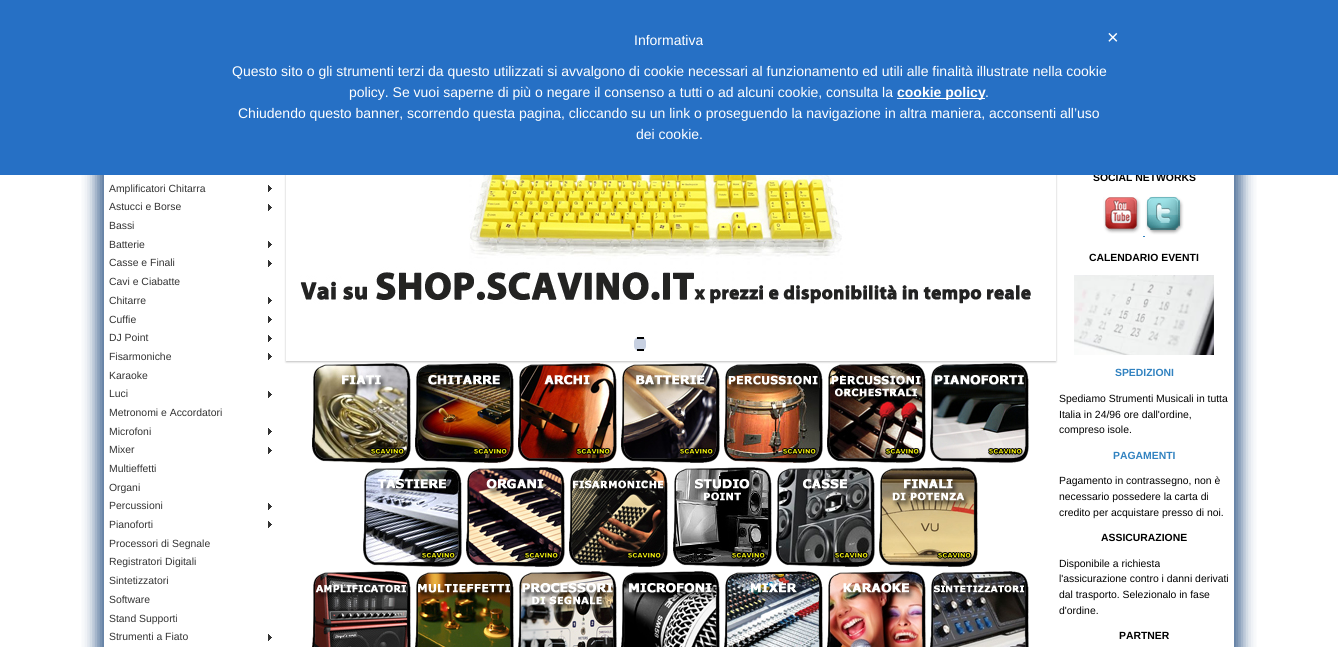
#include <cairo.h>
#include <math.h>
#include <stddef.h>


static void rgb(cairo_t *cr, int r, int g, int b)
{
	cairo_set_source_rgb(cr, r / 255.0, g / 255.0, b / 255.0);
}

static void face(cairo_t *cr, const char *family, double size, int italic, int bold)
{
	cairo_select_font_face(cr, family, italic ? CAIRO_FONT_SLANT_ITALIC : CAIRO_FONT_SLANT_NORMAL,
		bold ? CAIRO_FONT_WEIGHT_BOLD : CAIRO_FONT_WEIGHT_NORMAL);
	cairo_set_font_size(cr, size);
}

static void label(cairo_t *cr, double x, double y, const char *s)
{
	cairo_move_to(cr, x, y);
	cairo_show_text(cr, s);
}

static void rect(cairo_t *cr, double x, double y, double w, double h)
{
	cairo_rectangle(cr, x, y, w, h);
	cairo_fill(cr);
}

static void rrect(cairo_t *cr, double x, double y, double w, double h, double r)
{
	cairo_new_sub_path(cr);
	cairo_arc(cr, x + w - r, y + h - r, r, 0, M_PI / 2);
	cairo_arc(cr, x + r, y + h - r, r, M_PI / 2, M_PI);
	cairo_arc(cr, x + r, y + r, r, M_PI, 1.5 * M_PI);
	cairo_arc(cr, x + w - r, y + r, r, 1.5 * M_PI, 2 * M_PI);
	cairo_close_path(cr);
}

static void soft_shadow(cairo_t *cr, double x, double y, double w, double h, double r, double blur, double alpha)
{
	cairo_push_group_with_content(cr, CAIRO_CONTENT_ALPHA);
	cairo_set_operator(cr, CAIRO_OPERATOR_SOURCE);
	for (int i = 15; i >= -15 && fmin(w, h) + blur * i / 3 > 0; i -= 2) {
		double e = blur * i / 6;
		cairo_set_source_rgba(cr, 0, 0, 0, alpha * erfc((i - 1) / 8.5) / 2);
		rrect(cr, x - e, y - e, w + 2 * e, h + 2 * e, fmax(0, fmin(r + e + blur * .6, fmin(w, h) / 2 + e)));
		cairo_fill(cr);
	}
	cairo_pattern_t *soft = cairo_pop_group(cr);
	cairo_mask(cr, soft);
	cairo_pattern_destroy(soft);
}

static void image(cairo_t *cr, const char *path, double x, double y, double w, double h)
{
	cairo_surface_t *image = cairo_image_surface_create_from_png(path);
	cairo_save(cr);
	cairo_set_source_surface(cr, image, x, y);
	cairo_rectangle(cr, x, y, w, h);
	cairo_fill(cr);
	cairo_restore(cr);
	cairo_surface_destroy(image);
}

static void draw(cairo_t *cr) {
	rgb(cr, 255, 255, 255);
	cairo_paint(cr);
	cairo_save(cr);
	cairo_rectangle(cr, 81, 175, 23, 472);
	cairo_clip(cr);
	rgb(cr, 31, 73, 125);
	soft_shadow(cr, 96, 4, 1122, 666, 0, 7.5, 0.8);
	cairo_restore(cr);
	cairo_save(cr);
	cairo_rectangle(cr, 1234, 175, 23, 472);
	cairo_clip(cr);
	rgb(cr, 31, 73, 125);
	soft_shadow(cr, 120, 4, 1122, 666, 0, 7.5, 0.8);
	cairo_restore(cr);
	image(cr, "image2.png", 312, 363, 99, 100);
	image(cr, "image3.png", 415, 363, 99, 100);
	image(cr, "image4.png", 518, 363, 99, 100);
	image(cr, "image5.png", 621, 363, 99, 100);
	image(cr, "image6.png", 724, 363, 99, 100);
	image(cr, "image7.png", 827, 363, 99, 100);
	image(cr, "image8.png", 930, 363, 99, 100);
	cairo_save(cr);
	cairo_set_fill_rule(cr, CAIRO_FILL_RULE_EVEN_ODD);
	cairo_new_path(cr);
	cairo_move_to(cr, 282, 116);
	cairo_line_to(cr, 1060, 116);
	cairo_line_to(cr, 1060, 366);
	cairo_line_to(cr, 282, 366);
	cairo_close_path(cr);
	cairo_move_to(cr, 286, 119);
	cairo_line_to(cr, 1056, 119);
	cairo_line_to(cr, 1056, 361);
	cairo_line_to(cr, 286, 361);
	cairo_close_path(cr);
	cairo_clip(cr);
	rgb(cr, 0, 0, 0);
	soft_shadow(cr, 286, 120, 770, 242, 0, 1, 0.25);
	cairo_restore(cr);
	face(cr, "Liberation Sans", 10.4, 0, 1);
	rgb(cr, 0, 0, 0);
	label(cr, 1093, 181, "SOCIAL NETWORKS");
	rgb(cr, 38, 112, 197);
	rect(cr, 0, 0, 1338, 175);
	face(cr, "Liberation Sans", 14, 0, 0);
	rgb(cr, 255, 255, 255);
	label(cr, 634, 45, "Informativa");
	label(cr, 232, 76, "Questo sito o gli strumenti terzi da questo utilizzati si avvalgono di cookie necessari al funzionamento ed utili alle finalità illustrate nella cookie");
	label(cr, 349, 97, "policy. Se vuoi saperne di più o negare il consenso a tutti o ad alcuni cookie, consulta la");
	rect(cr, 897, 98, 88, 1);
	face(cr, "Liberation Sans", 14, 0, 1);
	label(cr, 897, 97, "cookie policy");
	face(cr, "Liberation Sans", 14, 0, 0);
	label(cr, 985, 97, ".");
	label(cr, 238, 118, "Chiudendo questo banner, scorrendo questa pagina, cliccando su un link o proseguendo la navigazione in altra maniera, acconsenti all’uso");
	label(cr, 636, 139, "dei cookie.");
	face(cr, "Liberation Sans", 20, 0, 0);
	label(cr, 1107, 44, "×");
	image(cr, "image0.png", 268, 185, 4, 7);
	face(cr, "Liberation Sans", 10.4, 0, 0);
	rgb(cr, 51, 51, 51);
	label(cr, 109, 192, "Amplificatori Chitarra");
	image(cr, "image0.png", 268, 204, 4, 7);
	label(cr, 109, 210, "Astucci e Borse");
	label(cr, 109, 229, "Bassi");
	image(cr, "image0.png", 268, 241, 4, 7);
	label(cr, 109, 248, "Batterie");
	image(cr, "image0.png", 268, 260, 4, 7);
	label(cr, 109, 266, "Casse e Finali");
	label(cr, 109, 285, "Cavi e Ciabatte");
	image(cr, "image0.png", 268, 297, 4, 7);
	label(cr, 109, 304, "Chitarre");
	image(cr, "image0.png", 268, 316, 4, 7);
	label(cr, 109, 323, "Cuffie");
	image(cr, "image0.png", 268, 335, 4, 7);
	label(cr, 109, 341, "DJ Point");
	image(cr, "image0.png", 268, 353, 4, 7);
	label(cr, 109, 360, "Fisarmoniche");
	label(cr, 109, 379, "Karaoke");
	image(cr, "image0.png", 268, 391, 4, 7);
	label(cr, 109, 397, "Luci");
	label(cr, 109, 416, "Metronomi e Accordatori");
	image(cr, "image0.png", 268, 428, 4, 7);
	label(cr, 109, 435, "Microfoni");
	image(cr, "image0.png", 268, 447, 4, 7);
	label(cr, 109, 453, "Mixer");
	label(cr, 109, 472, "Multieffetti");
	label(cr, 109, 491, "Organi");
	image(cr, "image0.png", 268, 503, 4, 7);
	label(cr, 109, 509, "Percussioni");
	image(cr, "image0.png", 268, 521, 4, 7);
	label(cr, 109, 528, "Pianoforti");
	label(cr, 109, 547, "Processori di Segnale");
	label(cr, 109, 565, "Registratori Digitali");
	label(cr, 109, 584, "Sintetizzatori");
	label(cr, 109, 603, "Software");
	label(cr, 109, 622, "Stand Supporti");
	image(cr, "image0.png", 268, 634, 4, 7);
	label(cr, 109, 640, "Strumenti a Fiato");
	image(cr, "image1.png", 300, 175, 731, 129);
	rgb(cr, 199, 208, 225);
	rrect(cr, 634, 337, 12, 14, 5);
	cairo_fill(cr);
	rgb(cr, 0, 0, 0);
	rect(cr, 637, 337, 7, 2);
	rect(cr, 637, 349, 7, 2);
	image(cr, "image9.png", 363, 467, 99, 100);
	image(cr, "image10.png", 466, 467, 99, 100);
	image(cr, "image11.png", 569, 467, 99, 100);
	image(cr, "image12.png", 673, 467, 99, 100);
	image(cr, "image13.png", 776, 467, 99, 100);
	image(cr, "image14.png", 879, 467, 99, 100);
	image(cr, "image15.png", 312, 571, 99, 76);
	image(cr, "image16.png", 415, 571, 99, 76);
	image(cr, "image17.png", 518, 571, 99, 76);
	image(cr, "image18.png", 621, 571, 99, 76);
	image(cr, "image19.png", 724, 571, 99, 76);
	image(cr, "image20.png", 827, 571, 99, 76);
	image(cr, "image21.png", 930, 571, 99, 76);
	image(cr, "image22.png", 1103, 197, 38, 37);
	image(cr, "image23.png", 1145, 196, 39, 39);
	rgb(cr, 49, 130, 192);
	rect(cr, 1143, 236, 2, 1);
	face(cr, "Liberation Sans", 10.4, 0, 1);
	rgb(cr, 0, 0, 0);
	label(cr, 1089, 261, "CALENDARIO EVENTI");
	image(cr, "image24.png", 1074, 275, 140, 80);
	rgb(cr, 49, 130, 192);
	label(cr, 1115, 376, "SPEDIZIONI");
	face(cr, "Liberation Sans", 10.4, 0, 0);
	rgb(cr, 0, 0, 0);
	label(cr, 1059, 402, "Spediamo Strumenti Musicali in tutta");
	label(cr, 1059, 418, "Italia in 24/96 ore dall'ordine,");
	label(cr, 1059, 433, "compreso isole.");
	face(cr, "Liberation Sans", 10.4, 0, 1);
	rgb(cr, 49, 130, 192);
	label(cr, 1113, 459, "PAGAMENTI");
	face(cr, "Liberation Sans", 10.4, 0, 0);
	rgb(cr, 0, 0, 0);
	label(cr, 1059, 484, "Pagamento in contrassegno, non è");
	label(cr, 1059, 500, "necessario possedere la carta di");
	label(cr, 1059, 516, "credito per acquistare presso di noi.");
	face(cr, "Liberation Sans", 10.4, 0, 1);
	label(cr, 1101, 541, "ASSICURAZIONE");
	face(cr, "Liberation Sans", 10.4, 0, 0);
	label(cr, 1059, 567, "Disponibile a richiesta");
	label(cr, 1059, 582, "l'assicurazione contro i danni derivati");
	label(cr, 1059, 598, "dal trasporto. Selezionalo in fase");
	label(cr, 1059, 614, "d'ordine.");
	face(cr, "Liberation Sans", 10.4, 0, 1);
	label(cr, 1119, 639, "PARTNER");
}

int main(void) {
	cairo_surface_t *surface = cairo_image_surface_create(CAIRO_FORMAT_RGB24, 1338, 647);
	cairo_t *cr = cairo_create(surface);
	cairo_font_options_t *options = cairo_font_options_create();
	cairo_font_options_set_hint_metrics(options, CAIRO_HINT_METRICS_OFF);
	cairo_font_options_set_hint_style(options, CAIRO_HINT_STYLE_NONE);
	cairo_set_font_options(cr, options);
	cairo_set_miter_limit(cr, 4);
	draw(cr);
	cairo_surface_write_to_png(surface, "render.png");
	cairo_font_options_destroy(options);
	cairo_destroy(cr);
	cairo_surface_destroy(surface);
	return 0;
}
